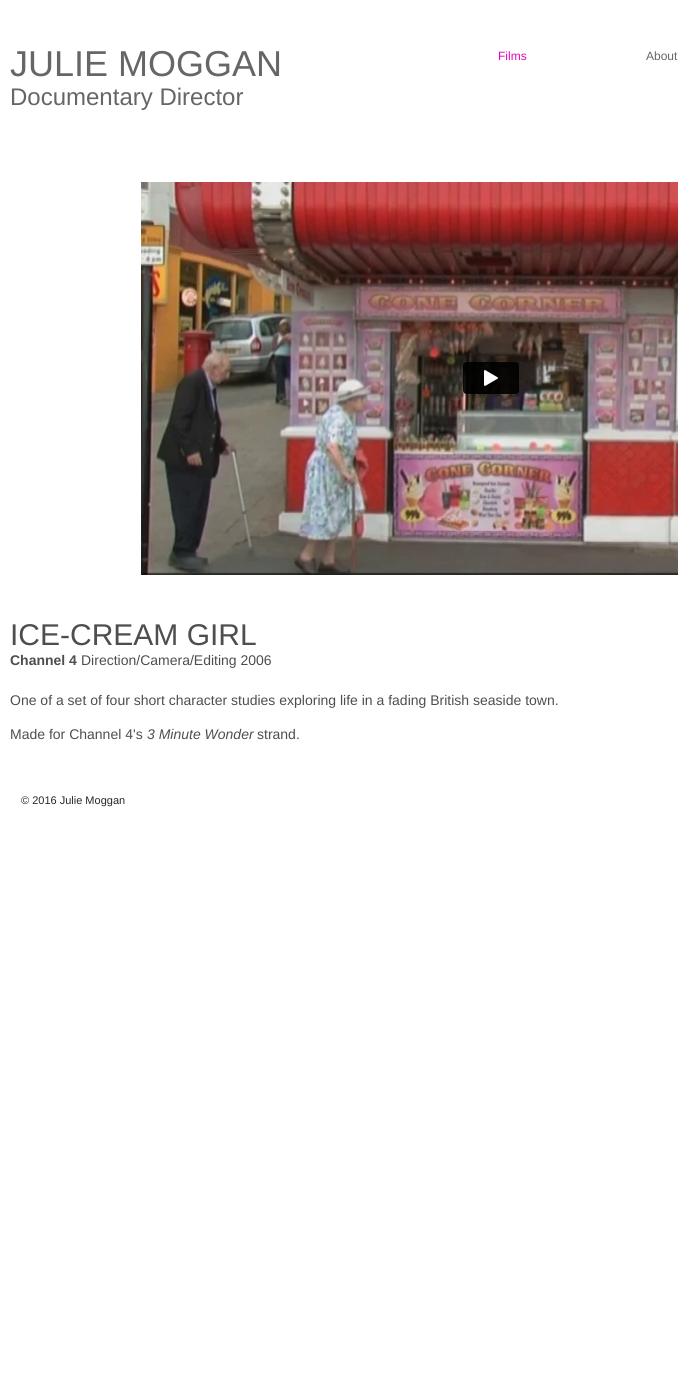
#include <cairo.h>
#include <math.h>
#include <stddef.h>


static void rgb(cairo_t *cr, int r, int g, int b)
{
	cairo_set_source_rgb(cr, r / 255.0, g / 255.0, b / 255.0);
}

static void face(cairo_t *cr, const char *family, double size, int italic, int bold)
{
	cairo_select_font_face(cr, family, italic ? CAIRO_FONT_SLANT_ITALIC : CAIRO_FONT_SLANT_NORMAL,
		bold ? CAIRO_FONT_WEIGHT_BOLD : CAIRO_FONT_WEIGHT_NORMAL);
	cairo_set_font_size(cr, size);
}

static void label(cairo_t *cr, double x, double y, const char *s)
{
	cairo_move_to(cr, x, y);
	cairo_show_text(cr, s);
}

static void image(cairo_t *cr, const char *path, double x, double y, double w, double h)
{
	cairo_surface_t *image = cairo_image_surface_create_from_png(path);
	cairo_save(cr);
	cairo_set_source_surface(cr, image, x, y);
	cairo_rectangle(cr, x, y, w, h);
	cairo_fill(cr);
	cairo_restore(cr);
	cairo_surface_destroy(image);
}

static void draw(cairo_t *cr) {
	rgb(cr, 255, 255, 255);
	cairo_paint(cr);
	face(cr, "Liberation Sans", 36, 0, 0);
	rgb(cr, 102, 102, 102);
	label(cr, 10, 76, "JULIE MOGGAN");
	face(cr, "Liberation Sans", 24, 0, 0);
	label(cr, 10, 105, "Documentary Director");
	face(cr, "Liberation Sans", 12, 0, 0);
	rgb(cr, 234, 4, 184);
	label(cr, 498, 60, "Films");
	rgb(cr, 102, 102, 102);
	label(cr, 646, 60, "About");
	image(cr, "image0.png", 141, 182, 537, 393);
	face(cr, "Liberation Sans", 30, 0, 0);
	rgb(cr, 78, 78, 78);
	label(cr, 10, 645, "ICE-CREAM GIRL");
	face(cr, "Liberation Sans", 14, 0, 1);
	label(cr, 10, 665, "Channel 4");
	face(cr, "Liberation Sans", 14, 0, 0);
	label(cr, 81, 665, "Direction/Camera/Editing 2006");
	label(cr, 10, 705, "One of a set of four short character studies exploring life in a fading British seaside town.");
	label(cr, 10, 739, "Made for Channel 4's");
	face(cr, "Liberation Sans", 14, 1, 0);
	label(cr, 147, 739, "3 Minute Wonder");
	face(cr, "Liberation Sans", 14, 0, 0);
	label(cr, 257, 739, "strand.");
	face(cr, "Liberation Sans", 11, 0, 0);
	rgb(cr, 39, 39, 39);
	label(cr, 21, 804, "© 2016 Julie Moggan");
}

int main(void) {
	cairo_surface_t *surface = cairo_image_surface_create(CAIRO_FORMAT_RGB24, 678, 1390);
	cairo_t *cr = cairo_create(surface);
	cairo_font_options_t *options = cairo_font_options_create();
	cairo_font_options_set_hint_metrics(options, CAIRO_HINT_METRICS_OFF);
	cairo_font_options_set_hint_style(options, CAIRO_HINT_STYLE_NONE);
	cairo_set_font_options(cr, options);
	cairo_set_miter_limit(cr, 4);
	draw(cr);
	cairo_surface_write_to_png(surface, "render.png");
	cairo_font_options_destroy(options);
	cairo_destroy(cr);
	cairo_surface_destroy(surface);
	return 0;
}
